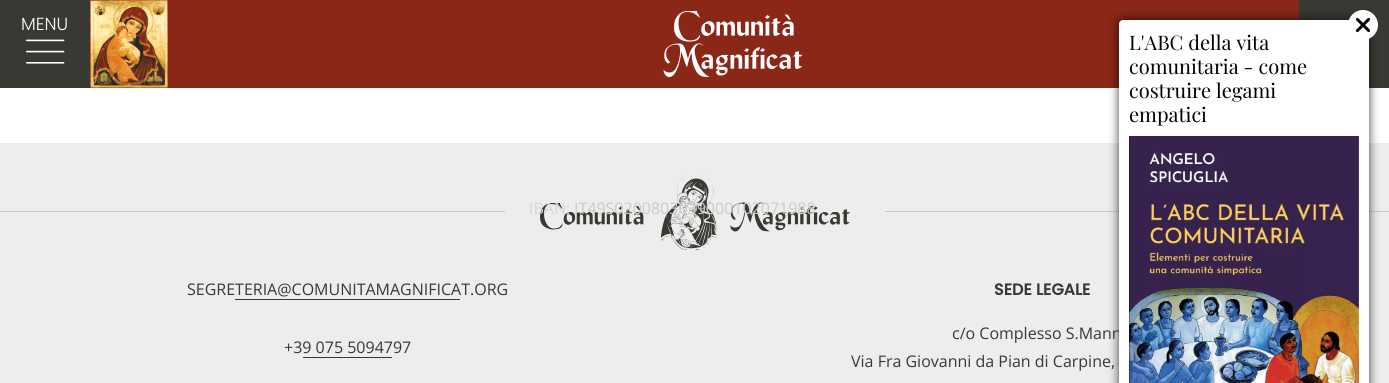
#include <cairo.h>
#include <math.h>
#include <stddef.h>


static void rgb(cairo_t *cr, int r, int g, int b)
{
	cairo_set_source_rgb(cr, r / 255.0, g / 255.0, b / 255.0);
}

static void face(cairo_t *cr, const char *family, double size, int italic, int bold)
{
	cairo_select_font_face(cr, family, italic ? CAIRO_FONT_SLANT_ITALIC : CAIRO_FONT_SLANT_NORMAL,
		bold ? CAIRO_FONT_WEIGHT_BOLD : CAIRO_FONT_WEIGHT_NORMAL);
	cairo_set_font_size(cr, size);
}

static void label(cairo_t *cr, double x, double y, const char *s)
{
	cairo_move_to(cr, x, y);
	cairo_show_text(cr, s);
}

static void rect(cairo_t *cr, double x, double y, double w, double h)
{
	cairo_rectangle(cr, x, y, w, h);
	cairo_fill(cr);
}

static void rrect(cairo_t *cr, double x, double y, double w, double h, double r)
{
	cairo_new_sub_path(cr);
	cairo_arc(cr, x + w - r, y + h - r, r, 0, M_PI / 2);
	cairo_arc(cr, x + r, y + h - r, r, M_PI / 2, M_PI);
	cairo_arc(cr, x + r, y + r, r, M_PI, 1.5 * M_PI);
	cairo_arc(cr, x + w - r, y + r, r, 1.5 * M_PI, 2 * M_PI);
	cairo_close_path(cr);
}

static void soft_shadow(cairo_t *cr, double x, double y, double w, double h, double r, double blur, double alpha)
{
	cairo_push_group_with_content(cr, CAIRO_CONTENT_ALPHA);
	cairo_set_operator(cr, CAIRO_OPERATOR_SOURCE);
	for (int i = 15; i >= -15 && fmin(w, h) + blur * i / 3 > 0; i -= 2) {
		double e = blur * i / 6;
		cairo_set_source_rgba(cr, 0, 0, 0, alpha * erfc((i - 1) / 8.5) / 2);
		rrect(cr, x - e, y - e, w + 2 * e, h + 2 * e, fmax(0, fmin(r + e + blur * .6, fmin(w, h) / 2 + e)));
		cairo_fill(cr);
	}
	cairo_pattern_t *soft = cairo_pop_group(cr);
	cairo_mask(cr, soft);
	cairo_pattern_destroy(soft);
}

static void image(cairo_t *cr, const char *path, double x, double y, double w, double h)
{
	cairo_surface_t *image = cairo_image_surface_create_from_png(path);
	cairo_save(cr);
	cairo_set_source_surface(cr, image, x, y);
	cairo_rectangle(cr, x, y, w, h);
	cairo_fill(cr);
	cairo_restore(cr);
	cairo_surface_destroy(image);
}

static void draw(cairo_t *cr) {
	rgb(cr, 255, 255, 255);
	cairo_paint(cr);
	rgb(cr, 56, 57, 50);
	rect(cr, 0, 0, 1389, 88);
	face(cr, "Poppins Light", 17.5, 0, 0);
	rgb(cr, 255, 255, 255);
	label(cr, 21, 30, "MENU");
	image(cr, "image0.png", 26, 39, 39, 25);
	rgb(cr, 138, 39, 22);
	rect(cr, 90, 0, 1209, 88);
	image(cr, "image1.png", 90, 0, 78, 88);
	image(cr, "image2.png", 663, 11, 140, 66);
	rgb(cr, 237, 237, 237);
	rect(cr, 0, 143, 1389, 240);
	rgb(cr, 201, 201, 201);
	rect(cr, 885, 211, 504, 1);
	rgb(cr, 0, 0, 0);
	soft_shadow(cr, 1119, 20, 250, 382, 4, 5, 0.75);
	face(cr, "Open Sans", 16, 0, 0);
	rgb(cr, 56, 57, 50);
	label(cr, 952, 339, "c/o Complesso S.Mann");
	rgb(cr, 255, 255, 255);
	rrect(cr, 1119, 20, 250, 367, 4);
	cairo_fill(cr);
	cairo_arc(cr, 1363, 25, 15, 0, 2 * M_PI);
	cairo_fill(cr);
	image(cr, "image3.png", 1355, 17, 16, 16);
	face(cr, "Playfair Display", 20, 0, 0);
	rgb(cr, 0, 0, 0);
	label(cr, 1129, 50, "L'ABC della vita");
	label(cr, 1129, 74, "comunitaria - come");
	label(cr, 1129, 98, "costruire legami");
	label(cr, 1129, 122, "empatici");
	image(cr, "image4.png", 1129, 136, 230, 247);
	image(cr, "image5.png", 540, 175, 310, 75);
	face(cr, "Open Sans", 16, 0, 0);
	rgb(cr, 215, 215, 214);
	label(cr, 529, 214, "IBAN:");
	rgb(cr, 203, 203, 202);
	label(cr, 574, 214, "IT49S0200803039000102071988");
	rgb(cr, 201, 201, 201);
	rect(cr, 0, 211, 505, 1);
	rgb(cr, 56, 57, 50);
	label(cr, 187, 295, "SEGRETERIA@COMUNITAMAGNIFICAT.ORG");
	rect(cr, 235, 299, 225, 1);
	label(cr, 284, 353, "+39 075 5094797");
	rect(cr, 303, 357, 89, 1);
	face(cr, "Poppins", 16, 0, 1);
	label(cr, 994, 295, "SEDE LEGALE");
	face(cr, "Open Sans", 16, 0, 0);
	label(cr, 851, 367, "Via Fra Giovanni da Pian di Carpine,");
}

int main(void) {
	cairo_surface_t *surface = cairo_image_surface_create(CAIRO_FORMAT_RGB24, 1389, 383);
	cairo_t *cr = cairo_create(surface);
	cairo_font_options_t *options = cairo_font_options_create();
	cairo_font_options_set_hint_metrics(options, CAIRO_HINT_METRICS_OFF);
	cairo_font_options_set_hint_style(options, CAIRO_HINT_STYLE_NONE);
	cairo_set_font_options(cr, options);
	cairo_set_miter_limit(cr, 4);
	draw(cr);
	cairo_surface_write_to_png(surface, "render.png");
	cairo_font_options_destroy(options);
	cairo_destroy(cr);
	cairo_surface_destroy(surface);
	return 0;
}
